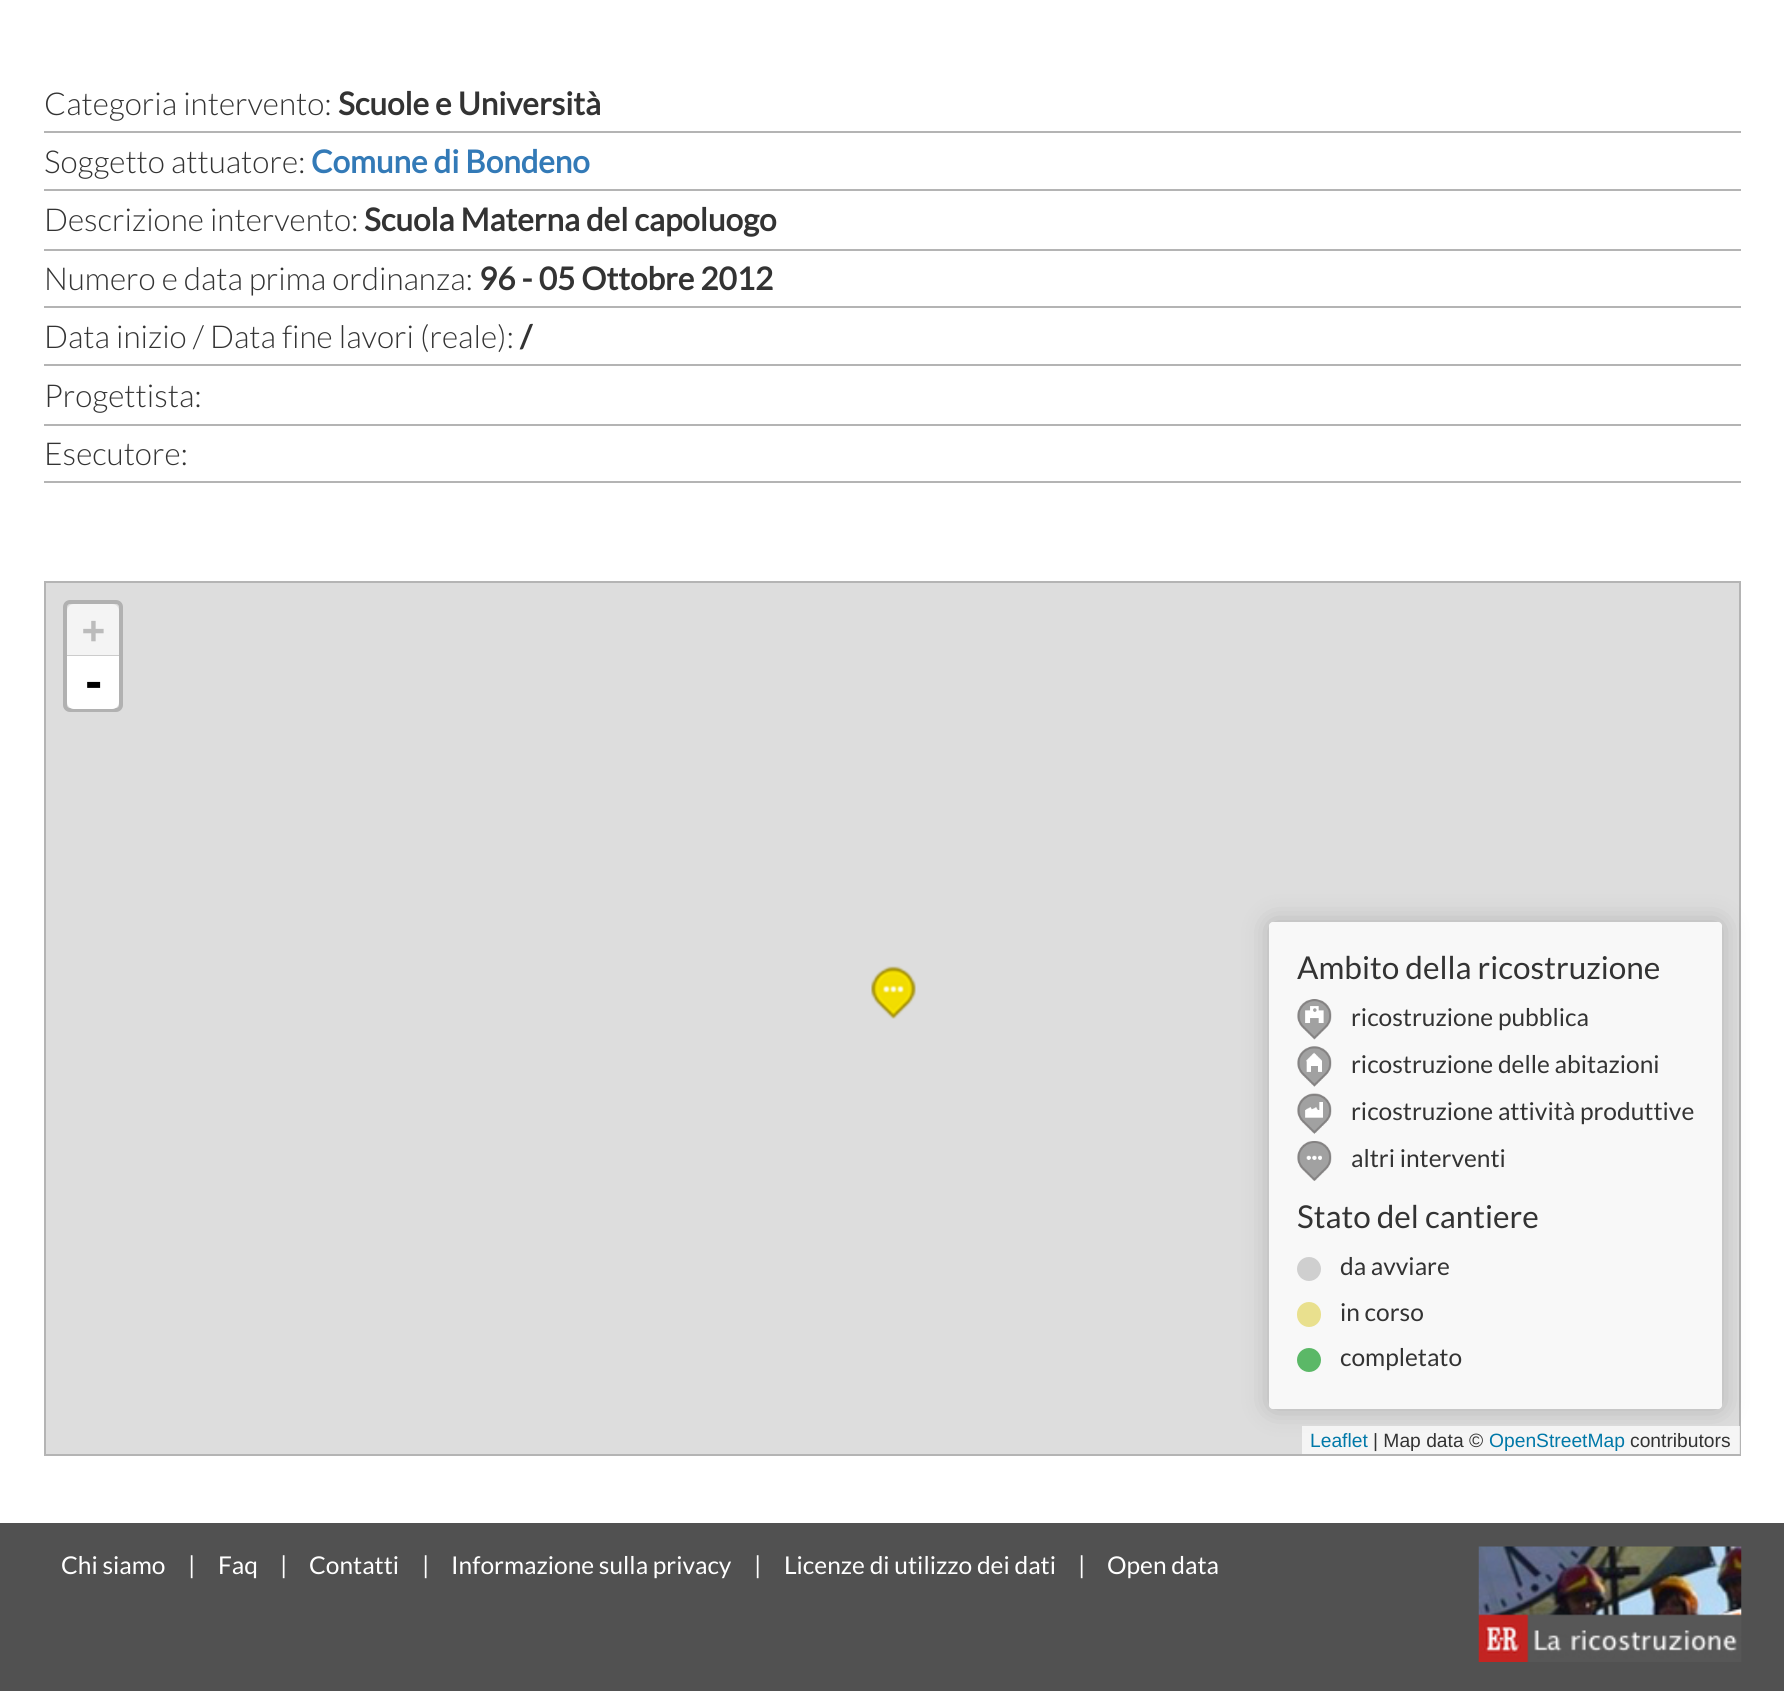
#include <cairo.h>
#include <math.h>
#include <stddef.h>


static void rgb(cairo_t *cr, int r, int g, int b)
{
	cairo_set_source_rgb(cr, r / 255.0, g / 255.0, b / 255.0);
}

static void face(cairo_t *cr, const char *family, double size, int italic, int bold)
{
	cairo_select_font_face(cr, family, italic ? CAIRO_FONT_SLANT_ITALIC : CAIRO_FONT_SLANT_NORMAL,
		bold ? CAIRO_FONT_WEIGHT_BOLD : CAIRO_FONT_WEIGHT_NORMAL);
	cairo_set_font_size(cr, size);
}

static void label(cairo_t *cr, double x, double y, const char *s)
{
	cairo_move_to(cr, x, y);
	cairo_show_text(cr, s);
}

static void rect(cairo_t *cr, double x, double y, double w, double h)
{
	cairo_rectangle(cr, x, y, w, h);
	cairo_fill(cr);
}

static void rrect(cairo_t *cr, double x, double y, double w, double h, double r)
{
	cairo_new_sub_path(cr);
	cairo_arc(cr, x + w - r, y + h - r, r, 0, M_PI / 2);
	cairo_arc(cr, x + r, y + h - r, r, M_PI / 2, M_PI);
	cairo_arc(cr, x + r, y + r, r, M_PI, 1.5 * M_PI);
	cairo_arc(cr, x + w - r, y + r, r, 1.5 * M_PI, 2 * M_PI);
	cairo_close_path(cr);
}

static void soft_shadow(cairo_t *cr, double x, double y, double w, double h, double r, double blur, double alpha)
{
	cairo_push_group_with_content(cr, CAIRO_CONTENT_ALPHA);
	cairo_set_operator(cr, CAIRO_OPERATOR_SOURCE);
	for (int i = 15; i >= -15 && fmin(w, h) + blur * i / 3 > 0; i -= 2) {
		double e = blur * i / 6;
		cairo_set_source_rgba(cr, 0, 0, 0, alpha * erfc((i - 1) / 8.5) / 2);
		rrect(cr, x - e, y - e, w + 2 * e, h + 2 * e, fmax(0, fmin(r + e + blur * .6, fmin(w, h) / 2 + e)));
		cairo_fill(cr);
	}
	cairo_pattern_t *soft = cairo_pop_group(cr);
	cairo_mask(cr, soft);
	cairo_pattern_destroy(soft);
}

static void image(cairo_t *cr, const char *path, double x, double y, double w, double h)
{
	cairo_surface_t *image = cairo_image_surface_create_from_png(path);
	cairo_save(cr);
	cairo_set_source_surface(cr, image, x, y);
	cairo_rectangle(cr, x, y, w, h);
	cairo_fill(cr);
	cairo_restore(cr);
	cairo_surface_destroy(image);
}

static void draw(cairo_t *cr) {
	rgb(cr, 255, 255, 255);
	cairo_paint(cr);
	rgb(cr, 180, 180, 180);
	rect(cr, 44, 131, 1697, 2);
	face(cr, "Lato Light", 31.5, 0, 0);
	rgb(cr, 51, 51, 51);
	label(cr, 44, 115, "Categoria intervento:");
	face(cr, "Lato", 31.5, 0, 1);
	label(cr, 338, 115, "Scuole e Università");
	rgb(cr, 180, 180, 180);
	rect(cr, 44, 189, 1697, 2);
	face(cr, "Lato Light", 31.5, 0, 0);
	rgb(cr, 51, 51, 51);
	label(cr, 44, 173, "Soggetto attuatore:");
	face(cr, "Lato", 31.5, 0, 1);
	rgb(cr, 51, 122, 183);
	label(cr, 311, 173, "Comune di Bondeno");
	rgb(cr, 180, 180, 180);
	rect(cr, 44, 249, 1697, 2);
	face(cr, "Lato Light", 31.5, 0, 0);
	rgb(cr, 51, 51, 51);
	label(cr, 44, 231, "Descrizione intervento:");
	face(cr, "Lato", 31.5, 0, 1);
	label(cr, 364, 231, "Scuola Materna del capoluogo");
	rgb(cr, 180, 180, 180);
	rect(cr, 44, 306, 1697, 2);
	face(cr, "Lato Light", 31.5, 0, 0);
	rgb(cr, 51, 51, 51);
	label(cr, 44, 290, "Numero e data prima ordinanza:");
	face(cr, "Lato", 31.5, 0, 1);
	label(cr, 479, 290, "96 - 05 Ottobre 2012");
	rgb(cr, 180, 180, 180);
	rect(cr, 44, 364, 1697, 2);
	face(cr, "Lato Light", 31.5, 0, 0);
	rgb(cr, 51, 51, 51);
	label(cr, 44, 348, "Data inizio / Data fine lavori (reale):");
	face(cr, "Lato", 31.5, 0, 1);
	label(cr, 520, 348, "/");
	rgb(cr, 180, 180, 180);
	rect(cr, 44, 424, 1697, 2);
	face(cr, "Lato Light", 31.5, 0, 0);
	rgb(cr, 51, 51, 51);
	label(cr, 44, 407, "Progettista:");
	rgb(cr, 180, 180, 180);
	rect(cr, 44, 481, 1697, 2);
	rgb(cr, 51, 51, 51);
	label(cr, 44, 465, "Esecutore:");
	rgb(cr, 221, 221, 221);
	cairo_rectangle(cr, 45, 582, 1695, 873);
	cairo_fill_preserve(cr);
	rgb(cr, 180, 180, 180);
	cairo_stroke(cr);
	rrect(cr, 65, 602, 56, 108, 5);
	rgb(cr, 177, 177, 177);
	cairo_set_line_width(cr, 4);
	cairo_stroke(cr);
	rgb(cr, 244, 244, 244);
	cairo_new_path(cr);
	cairo_move_to(cr, 74, 604);
	cairo_line_to(cr, 112, 604);
	cairo_curve_to(cr, 116, 604, 119, 607, 119, 611);
	cairo_line_to(cr, 119, 656);
	cairo_line_to(cr, 67, 656);
	cairo_line_to(cr, 67, 611);
	cairo_curve_to(cr, 67, 607, 70, 604, 74, 604);
	cairo_close_path(cr);
	cairo_fill(cr);
	rgb(cr, 204, 204, 204);
	rect(cr, 67, 655, 52, 1);
	face(cr, "DejaVu Sans Mono", 38, 0, 1);
	rgb(cr, 187, 187, 187);
	label(cr, 82, 643, "+");
	rgb(cr, 255, 255, 255);
	cairo_new_path(cr);
	cairo_move_to(cr, 67, 656);
	cairo_line_to(cr, 119, 656);
	cairo_line_to(cr, 119, 702);
	cairo_curve_to(cr, 119, 706, 116, 709, 112, 709);
	cairo_line_to(cr, 74, 709);
	cairo_curve_to(cr, 70, 709, 67, 706, 67, 702);
	cairo_close_path(cr);
	cairo_fill(cr);
	face(cr, "DejaVu Sans Mono", 42, 0, 1);
	rgb(cr, 0, 0, 0);
	label(cr, 81, 697, "-");
	cairo_save(cr);
	cairo_set_fill_rule(cr, CAIRO_FILL_RULE_EVEN_ODD);
	cairo_new_path(cr);
	cairo_move_to(cr, 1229, 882);
	cairo_line_to(cr, 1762, 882);
	cairo_line_to(cr, 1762, 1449);
	cairo_line_to(cr, 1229, 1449);
	cairo_close_path(cr);
	cairo_move_to(cr, 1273, 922);
	cairo_line_to(cr, 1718, 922);
	cairo_curve_to(cr, 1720, 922, 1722, 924, 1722, 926);
	cairo_line_to(cr, 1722, 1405);
	cairo_curve_to(cr, 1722, 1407, 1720, 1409, 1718, 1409);
	cairo_line_to(cr, 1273, 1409);
	cairo_curve_to(cr, 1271, 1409, 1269, 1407, 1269, 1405);
	cairo_line_to(cr, 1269, 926);
	cairo_curve_to(cr, 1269, 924, 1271, 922, 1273, 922);
	cairo_close_path(cr);
	cairo_clip(cr);
	rgb(cr, 0, 0, 0);
	soft_shadow(cr, 1269, 922, 453, 487, 4, 13, 0.2);
	cairo_restore(cr);
	cairo_set_source_rgba(cr, 1, 1, 1, 0.8);
	rrect(cr, 1269, 922, 453, 487, 4);
	cairo_fill(cr);
	face(cr, "Lato", 31.5, 0, 0);
	rgb(cr, 51, 51, 51);
	label(cr, 1297, 979, "Ambito della ricostruzione");
	image(cr, "image0.png", 1297, 999, 35, 41);
	face(cr, "Lato", 24.5, 0, 0);
	label(cr, 1351, 1026, "ricostruzione pubblica");
	image(cr, "image1.png", 1297, 1046, 35, 41);
	label(cr, 1351, 1073, "ricostruzione delle abitazioni");
	image(cr, "image2.png", 1297, 1093, 35, 41);
	label(cr, 1351, 1120, "ricostruzione attività produttive");
	image(cr, "image3.png", 1297, 1141, 35, 40);
	label(cr, 1351, 1167, "altri interventi");
	face(cr, "Lato", 31.5, 0, 0);
	label(cr, 1297, 1228, "Stato del cantiere");
	rgb(cr, 207, 207, 207);
	cairo_new_path(cr);
	cairo_arc(cr, 1309, 1269, 12, 0, 2 * M_PI);
	cairo_fill(cr);
	face(cr, "Lato", 24.5, 0, 0);
	rgb(cr, 51, 51, 51);
	label(cr, 1340, 1275, "da avviare");
	rgb(cr, 233, 224, 142);
	rrect(cr, 1297, 1302, 24, 25, 12);
	cairo_fill(cr);
	rgb(cr, 51, 51, 51);
	label(cr, 1340, 1321, "in corso");
	rgb(cr, 91, 184, 103);
	cairo_new_path(cr);
	cairo_arc(cr, 1309, 1360, 12, 0, 2 * M_PI);
	cairo_fill(cr);
	rgb(cr, 51, 51, 51);
	label(cr, 1340, 1366, "completato");
	cairo_set_source_rgba(cr, 1, 1, 1, 0.7);
	rect(cr, 1302, 1426, 438, 28);
	face(cr, "Liberation Sans", 19.25, 0, 0);
	rgb(cr, 0, 120, 168);
	label(cr, 1310, 1447, "Leaflet");
	rgb(cr, 51, 51, 51);
	label(cr, 1373, 1447, "| Map data ©");
	rgb(cr, 0, 120, 168);
	label(cr, 1489, 1447, "OpenStreetMap");
	rgb(cr, 51, 51, 51);
	label(cr, 1630, 1447, "contributors");
	image(cr, "image4.png", 871, 966, 45, 53);
	rgb(cr, 81, 81, 81);
	rect(cr, 0, 1523, 1784, 168);
	face(cr, "Lato", 24.5, 0, 0);
	rgb(cr, 255, 255, 255);
	label(cr, 61, 1574, "Chi siamo");
	label(cr, 188, 1574, "|");
	label(cr, 218, 1574, "Faq");
	label(cr, 280, 1574, "|");
	label(cr, 309, 1574, "Contatti");
	label(cr, 422, 1574, "|");
	label(cr, 451, 1574, "Informazione sulla privacy");
	label(cr, 754, 1574, "|");
	label(cr, 784, 1574, "Licenze di utilizzo dei dati");
	label(cr, 1078, 1574, "|");
	label(cr, 1107, 1574, "Open data");
	image(cr, "image5.png", 1478, 1546, 264, 116);
}

int main(void) {
	cairo_surface_t *surface = cairo_image_surface_create(CAIRO_FORMAT_RGB24, 1784, 1691);
	cairo_t *cr = cairo_create(surface);
	cairo_font_options_t *options = cairo_font_options_create();
	cairo_font_options_set_hint_metrics(options, CAIRO_HINT_METRICS_OFF);
	cairo_font_options_set_hint_style(options, CAIRO_HINT_STYLE_NONE);
	cairo_set_font_options(cr, options);
	cairo_set_miter_limit(cr, 4);
	draw(cr);
	cairo_surface_write_to_png(surface, "render.png");
	cairo_font_options_destroy(options);
	cairo_destroy(cr);
	cairo_surface_destroy(surface);
	return 0;
}
